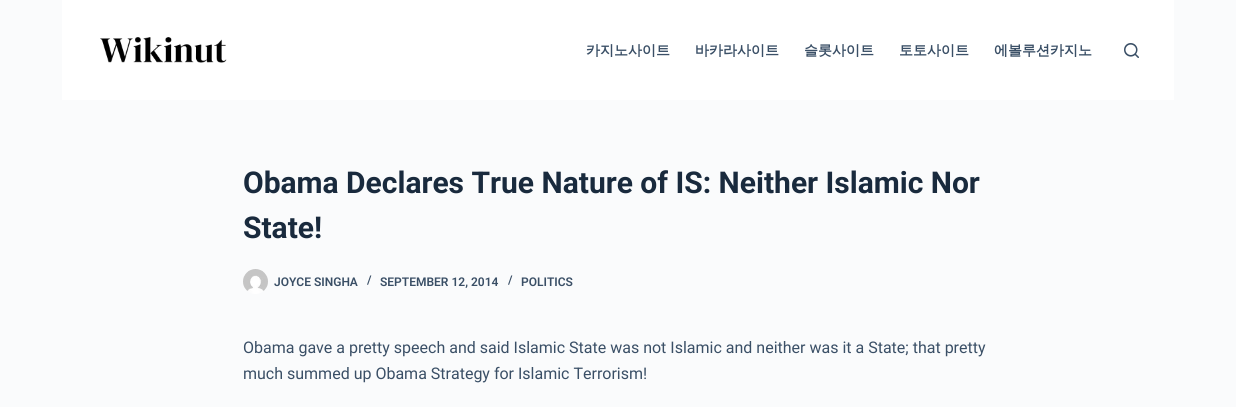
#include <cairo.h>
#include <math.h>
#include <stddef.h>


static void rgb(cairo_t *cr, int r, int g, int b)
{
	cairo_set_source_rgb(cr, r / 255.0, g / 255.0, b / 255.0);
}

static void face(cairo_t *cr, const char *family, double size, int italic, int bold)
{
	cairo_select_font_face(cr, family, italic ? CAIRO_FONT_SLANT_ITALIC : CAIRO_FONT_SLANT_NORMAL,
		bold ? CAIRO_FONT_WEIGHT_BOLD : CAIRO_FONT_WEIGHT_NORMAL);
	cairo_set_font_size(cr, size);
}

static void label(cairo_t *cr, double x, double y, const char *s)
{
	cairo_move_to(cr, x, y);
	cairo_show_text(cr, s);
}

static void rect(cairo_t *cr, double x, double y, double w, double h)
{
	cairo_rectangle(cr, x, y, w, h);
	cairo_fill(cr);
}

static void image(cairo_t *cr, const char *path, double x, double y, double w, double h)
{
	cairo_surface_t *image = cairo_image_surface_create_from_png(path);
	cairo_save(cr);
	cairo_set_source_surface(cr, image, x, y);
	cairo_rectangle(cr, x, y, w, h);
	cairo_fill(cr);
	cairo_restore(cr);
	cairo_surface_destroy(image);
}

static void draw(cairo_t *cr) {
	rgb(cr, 250, 251, 252);
	cairo_paint(cr);
	rgb(cr, 255, 255, 255);
	rect(cr, 62, 0, 1112, 100);
	image(cr, "image0.png", 100, 37, 127, 26);
	face(cr, "WenQuanYi Zen Hei", 14, 0, 1);
	rgb(cr, 58, 79, 102);
	label(cr, 586, 55, "카지노사이트");
	label(cr, 695, 55, "바카라사이트");
	label(cr, 804, 55, "슬롯사이트");
	label(cr, 899, 55, "토토사이트");
	label(cr, 994, 55, "에볼루션카지노");
	image(cr, "image1.png", 1124, 43, 15, 15);
	face(cr, "Roboto", 30, 0, 1);
	rgb(cr, 25, 42, 61);
	label(cr, 243, 193, "Obama Declares True Nature of IS: Neither Islamic Nor");
	label(cr, 243, 238, "State!");
	image(cr, "image2.png", 243, 269, 25, 25);
	face(cr, "Roboto SemiBold", 12, 0, 0);
	rgb(cr, 58, 79, 102);
	label(cr, 274, 286, "JOYCE SINGHA");
	label(cr, 367, 284, "/");
	label(cr, 380, 286, "SEPTEMBER 12, 2014");
	label(cr, 508, 284, "/");
	label(cr, 521, 286, "POLITICS");
	face(cr, "Roboto", 16, 0, 0);
	label(cr, 243, 353, "Obama gave a pretty speech and said Islamic State was not Islamic and neither was it a State; that pretty");
	label(cr, 243, 379, "much summed up Obama Strategy for Islamic Terrorism!");
}

int main(void) {
	cairo_surface_t *surface = cairo_image_surface_create(CAIRO_FORMAT_RGB24, 1236, 407);
	cairo_t *cr = cairo_create(surface);
	cairo_font_options_t *options = cairo_font_options_create();
	cairo_font_options_set_hint_metrics(options, CAIRO_HINT_METRICS_OFF);
	cairo_font_options_set_hint_style(options, CAIRO_HINT_STYLE_NONE);
	cairo_set_font_options(cr, options);
	cairo_set_miter_limit(cr, 4);
	draw(cr);
	cairo_surface_write_to_png(surface, "render.png");
	cairo_font_options_destroy(options);
	cairo_destroy(cr);
	cairo_surface_destroy(surface);
	return 0;
}
